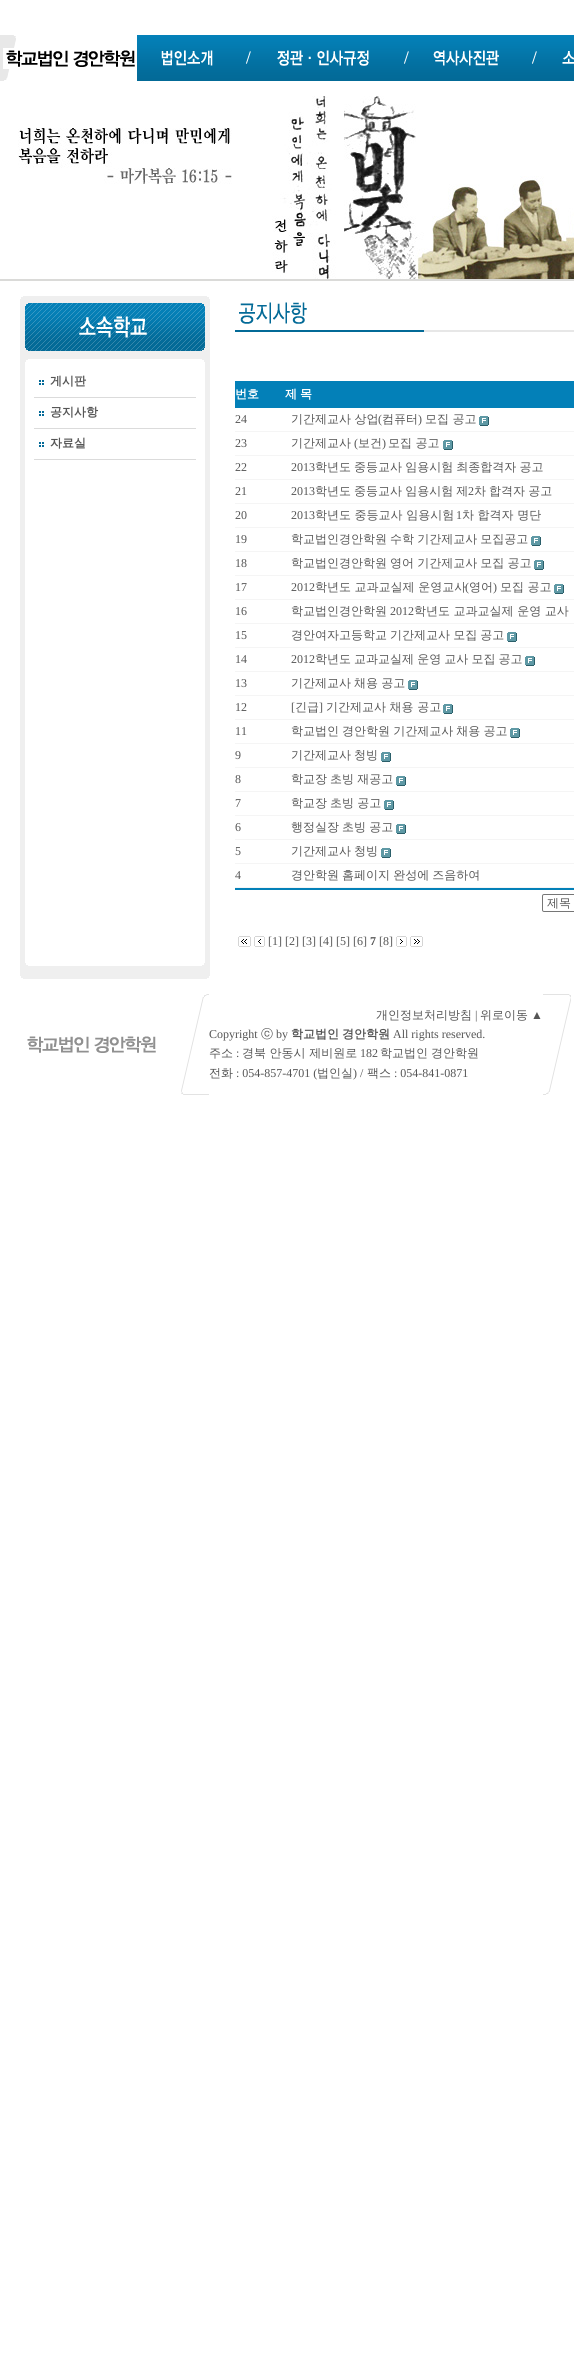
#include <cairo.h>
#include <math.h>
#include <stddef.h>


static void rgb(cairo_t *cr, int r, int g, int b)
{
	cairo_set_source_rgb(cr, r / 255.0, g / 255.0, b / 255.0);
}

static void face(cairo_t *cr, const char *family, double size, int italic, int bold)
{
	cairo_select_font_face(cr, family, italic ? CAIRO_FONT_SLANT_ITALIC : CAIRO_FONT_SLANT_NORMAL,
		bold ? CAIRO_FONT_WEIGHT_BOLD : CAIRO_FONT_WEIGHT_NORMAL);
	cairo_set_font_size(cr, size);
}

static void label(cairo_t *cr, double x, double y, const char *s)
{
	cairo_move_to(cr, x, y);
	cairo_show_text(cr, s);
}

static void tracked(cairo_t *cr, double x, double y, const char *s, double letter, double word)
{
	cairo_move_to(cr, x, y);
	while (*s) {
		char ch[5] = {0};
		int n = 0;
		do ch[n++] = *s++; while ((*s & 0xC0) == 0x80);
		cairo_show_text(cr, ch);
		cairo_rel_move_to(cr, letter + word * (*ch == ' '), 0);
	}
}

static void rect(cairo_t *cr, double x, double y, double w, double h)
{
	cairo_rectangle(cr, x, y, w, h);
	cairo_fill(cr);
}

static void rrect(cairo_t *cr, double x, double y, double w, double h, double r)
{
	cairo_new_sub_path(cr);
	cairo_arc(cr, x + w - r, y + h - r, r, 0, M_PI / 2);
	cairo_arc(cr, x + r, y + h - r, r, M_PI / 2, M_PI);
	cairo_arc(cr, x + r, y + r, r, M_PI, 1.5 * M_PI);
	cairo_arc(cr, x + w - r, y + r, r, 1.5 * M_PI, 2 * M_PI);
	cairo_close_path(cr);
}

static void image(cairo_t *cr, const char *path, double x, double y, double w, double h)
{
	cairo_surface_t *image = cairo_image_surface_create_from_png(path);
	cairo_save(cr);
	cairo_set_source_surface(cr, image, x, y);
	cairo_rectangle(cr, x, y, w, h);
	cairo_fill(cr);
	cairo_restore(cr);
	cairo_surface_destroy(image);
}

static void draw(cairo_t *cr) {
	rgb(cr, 255, 255, 255);
	cairo_paint(cr);
	rgb(cr, 232, 232, 232);
	rect(cr, 0, 35, 3, 46);
	image(cr, "image0.png", 3, 35, 13, 46);
	image(cr, "image1.png", 3, 48, 132, 21);
	image(cr, "image2.png", 137, 35, 114, 46);
	image(cr, "image3.png", 251, 35, 158, 46);
	image(cr, "image4.png", 409, 35, 128, 46);
	image(cr, "image5.png", 537, 35, 37, 46);
	image(cr, "image6.png", 18, 96, 556, 183);
	rgb(cr, 218, 218, 216);
	rect(cr, 0, 279, 574, 2);
	image(cr, "image7.png", 20, 362, 190, 597);
	image(cr, "image8.png", 20, 296, 190, 66);
	image(cr, "image9.png", 39, 380, 5, 5);
	face(cr, "WenQuanYi Zen Hei", 12, 0, 1);
	rgb(cr, 85, 85, 85);
	label(cr, 50, 385, "게시판");
	rgb(cr, 219, 219, 219);
	rect(cr, 34, 397, 162, 1);
	image(cr, "image9.png", 39, 411, 5, 5);
	rgb(cr, 85, 85, 85);
	label(cr, 50, 416, "공지사항");
	rgb(cr, 219, 219, 219);
	rect(cr, 34, 428, 162, 1);
	image(cr, "image9.png", 39, 442, 5, 5);
	rgb(cr, 85, 85, 85);
	label(cr, 50, 447, "자료실");
	rgb(cr, 219, 219, 219);
	rect(cr, 34, 459, 162, 1);
	image(cr, "image10.png", 235, 302, 189, 30);
	rgb(cr, 231, 231, 231);
	rect(cr, 424, 330, 150, 2);
	rgb(cr, 3, 128, 184);
	rect(cr, 235, 381, 339, 27);
	rgb(cr, 255, 255, 255);
	label(cr, 235, 398, "번호");
	tracked(cr, 285, 398, "제 목", 0, -0.5);
	face(cr, "Liberation Serif", 12, 0, 0);
	rgb(cr, 85, 85, 85);
	label(cr, 235, 423, "24");
	face(cr, "WenQuanYi Zen Hei Medium", 12, 0, 0);
	label(cr, 291, 423, "기간제교사 상업");
	face(cr, "Liberation Serif", 12, 0, 0);
	label(cr, 378, 423, "(");
	face(cr, "WenQuanYi Zen Hei Medium", 12, 0, 0);
	label(cr, 382, 423, "컴퓨터");
	face(cr, "Liberation Serif", 12, 0, 0);
	label(cr, 418, 423, ")");
	face(cr, "WenQuanYi Zen Hei Medium", 12, 0, 0);
	label(cr, 425, 423, "모집 공고");
	image(cr, "image11.png", 479, 416, 10, 10);
	rgb(cr, 245, 245, 245);
	rect(cr, 235, 431, 339, 1);
	face(cr, "Liberation Serif", 12, 0, 0);
	rgb(cr, 85, 85, 85);
	label(cr, 235, 447, "23");
	face(cr, "WenQuanYi Zen Hei Medium", 12, 0, 0);
	label(cr, 291, 447, "기간제교사");
	face(cr, "Liberation Serif", 12, 0, 0);
	label(cr, 354, 447, "(");
	face(cr, "WenQuanYi Zen Hei Medium", 12, 0, 0);
	label(cr, 358, 447, "보건");
	face(cr, "Liberation Serif", 12, 0, 0);
	label(cr, 382, 447, ")");
	face(cr, "WenQuanYi Zen Hei Medium", 12, 0, 0);
	label(cr, 388, 447, "모집 공고");
	image(cr, "image11.png", 443, 440, 10, 10);
	rgb(cr, 245, 245, 245);
	rect(cr, 235, 455, 339, 1);
	face(cr, "Liberation Serif", 12, 0, 0);
	rgb(cr, 85, 85, 85);
	label(cr, 235, 471, "22");
	label(cr, 291, 471, "2013");
	face(cr, "WenQuanYi Zen Hei Medium", 12, 0, 0);
	tracked(cr, 315, 471, "학년도 중등교사 임용시험 최종합격자 공고", 0, -0.5);
	rgb(cr, 245, 245, 245);
	rect(cr, 235, 479, 339, 1);
	face(cr, "Liberation Serif", 12, 0, 0);
	rgb(cr, 85, 85, 85);
	label(cr, 235, 495, "21");
	label(cr, 291, 495, "2013");
	face(cr, "WenQuanYi Zen Hei Medium", 12, 0, 0);
	tracked(cr, 315, 495, "학년도 중등교사 임용시험 제", 0, -0.5);
	face(cr, "Liberation Serif", 12, 0, 0);
	label(cr, 468, 495, "2");
	face(cr, "WenQuanYi Zen Hei Medium", 12, 0, 0);
	tracked(cr, 474, 495, "차 합격자 공고", 0, -0.5);
	rgb(cr, 245, 245, 245);
	rect(cr, 235, 503, 339, 1);
	face(cr, "Liberation Serif", 12, 0, 0);
	rgb(cr, 85, 85, 85);
	label(cr, 235, 519, "20");
	label(cr, 291, 519, "2013");
	face(cr, "WenQuanYi Zen Hei Medium", 12, 0, 0);
	label(cr, 315, 519, "학년도 중등교사 임용시험");
	face(cr, "Liberation Serif", 12, 0, 0);
	label(cr, 456, 519, "1");
	face(cr, "WenQuanYi Zen Hei Medium", 12, 0, 0);
	label(cr, 462, 519, "차 합격자 명단");
	rgb(cr, 245, 245, 245);
	rect(cr, 235, 527, 339, 1);
	face(cr, "Liberation Serif", 12, 0, 0);
	rgb(cr, 85, 85, 85);
	label(cr, 235, 543, "19");
	face(cr, "WenQuanYi Zen Hei Medium", 12, 0, 0);
	tracked(cr, 291, 543, "학교법인경안학원 수학 기간제교사 모집공고", 0, -0.5);
	image(cr, "image11.png", 531, 536, 10, 10);
	rgb(cr, 245, 245, 245);
	rect(cr, 235, 551, 339, 1);
	face(cr, "Liberation Serif", 12, 0, 0);
	rgb(cr, 85, 85, 85);
	label(cr, 235, 567, "18");
	face(cr, "WenQuanYi Zen Hei Medium", 12, 0, 0);
	tracked(cr, 291, 567, "학교법인경안학원 영어 기간제교사 모집 공고", 0, -0.5);
	image(cr, "image11.png", 534, 560, 10, 10);
	rgb(cr, 245, 245, 245);
	rect(cr, 235, 575, 339, 1);
	face(cr, "Liberation Serif", 12, 0, 0);
	rgb(cr, 85, 85, 85);
	label(cr, 235, 591, "17");
	label(cr, 291, 591, "2012");
	face(cr, "WenQuanYi Zen Hei Medium", 12, 0, 0);
	label(cr, 315, 591, "학년도 교과교실제 운영교사");
	face(cr, "Liberation Serif", 12, 0, 0);
	label(cr, 465, 591, "(");
	face(cr, "WenQuanYi Zen Hei Medium", 12, 0, 0);
	label(cr, 469, 591, "영어");
	face(cr, "Liberation Serif", 12, 0, 0);
	label(cr, 493, 591, ")");
	face(cr, "WenQuanYi Zen Hei Medium", 12, 0, 0);
	label(cr, 500, 591, "모집 공고");
	image(cr, "image11.png", 554, 584, 10, 10);
	rgb(cr, 245, 245, 245);
	rect(cr, 235, 599, 339, 1);
	face(cr, "Liberation Serif", 12, 0, 0);
	rgb(cr, 85, 85, 85);
	label(cr, 235, 615, "16");
	face(cr, "WenQuanYi Zen Hei Medium", 12, 0, 0);
	label(cr, 291, 615, "학교법인경안학원");
	face(cr, "Liberation Serif", 12, 0, 0);
	label(cr, 390, 615, "2012");
	face(cr, "WenQuanYi Zen Hei Medium", 12, 0, 0);
	label(cr, 414, 615, "학년도 교과교실제 운영 교사");
	rgb(cr, 245, 245, 245);
	rect(cr, 235, 623, 339, 1);
	face(cr, "Liberation Serif", 12, 0, 0);
	rgb(cr, 85, 85, 85);
	label(cr, 235, 639, "15");
	face(cr, "WenQuanYi Zen Hei Medium", 12, 0, 0);
	tracked(cr, 291, 639, "경안여자고등학교 기간제교사 모집 공고", 0, -0.5);
	image(cr, "image11.png", 507, 632, 10, 10);
	rgb(cr, 245, 245, 245);
	rect(cr, 235, 647, 339, 1);
	face(cr, "Liberation Serif", 12, 0, 0);
	rgb(cr, 85, 85, 85);
	label(cr, 235, 663, "14");
	label(cr, 291, 663, "2012");
	face(cr, "WenQuanYi Zen Hei Medium", 12, 0, 0);
	tracked(cr, 315, 663, "학년도 교과교실제 운영 교사 모집 공고", 0, -0.5);
	image(cr, "image11.png", 525, 656, 10, 10);
	rgb(cr, 245, 245, 245);
	rect(cr, 235, 671, 339, 1);
	face(cr, "Liberation Serif", 12, 0, 0);
	rgb(cr, 85, 85, 85);
	label(cr, 235, 687, "13");
	face(cr, "WenQuanYi Zen Hei Medium", 12, 0, 0);
	tracked(cr, 291, 687, "기간제교사 채용 공고", 0, -0.5);
	image(cr, "image11.png", 408, 680, 10, 10);
	rgb(cr, 245, 245, 245);
	rect(cr, 235, 695, 339, 1);
	face(cr, "Liberation Serif", 12, 0, 0);
	rgb(cr, 85, 85, 85);
	label(cr, 235, 711, "12");
	label(cr, 291, 711, "[");
	face(cr, "WenQuanYi Zen Hei Medium", 12, 0, 0);
	label(cr, 295, 711, "긴급");
	face(cr, "Liberation Serif", 12, 0, 0);
	label(cr, 319, 711, "]");
	face(cr, "WenQuanYi Zen Hei Medium", 12, 0, 0);
	label(cr, 326, 711, "기간제교사 채용 공고");
	image(cr, "image11.png", 443, 704, 10, 10);
	rgb(cr, 245, 245, 245);
	rect(cr, 235, 719, 339, 1);
	face(cr, "Liberation Serif", 12, 0, 0);
	rgb(cr, 85, 85, 85);
	label(cr, 235, 735, "11");
	face(cr, "WenQuanYi Zen Hei Medium", 12, 0, 0);
	tracked(cr, 291, 735, "학교법인 경안학원 기간제교사 채용 공고", 0, -0.5);
	image(cr, "image11.png", 510, 728, 10, 10);
	rgb(cr, 245, 245, 245);
	rect(cr, 235, 743, 339, 1);
	face(cr, "Liberation Serif", 12, 0, 0);
	rgb(cr, 85, 85, 85);
	label(cr, 235, 759, "9");
	face(cr, "WenQuanYi Zen Hei Medium", 12, 0, 0);
	tracked(cr, 291, 759, "기간제교사 청빙", 0, -0.5);
	image(cr, "image11.png", 381, 752, 10, 10);
	rgb(cr, 245, 245, 245);
	rect(cr, 235, 767, 339, 1);
	face(cr, "Liberation Serif", 12, 0, 0);
	rgb(cr, 85, 85, 85);
	label(cr, 235, 783, "8");
	face(cr, "WenQuanYi Zen Hei Medium", 12, 0, 0);
	tracked(cr, 291, 783, "학교장 초빙 재공고", 0, -0.5);
	image(cr, "image11.png", 396, 776, 10, 10);
	rgb(cr, 245, 245, 245);
	rect(cr, 235, 791, 339, 1);
	face(cr, "Liberation Serif", 12, 0, 0);
	rgb(cr, 85, 85, 85);
	label(cr, 235, 807, "7");
	face(cr, "WenQuanYi Zen Hei Medium", 12, 0, 0);
	tracked(cr, 291, 807, "학교장 초빙 공고", 0, -0.5);
	image(cr, "image11.png", 384, 800, 10, 10);
	rgb(cr, 245, 245, 245);
	rect(cr, 235, 815, 339, 1);
	face(cr, "Liberation Serif", 12, 0, 0);
	rgb(cr, 85, 85, 85);
	label(cr, 235, 831, "6");
	face(cr, "WenQuanYi Zen Hei Medium", 12, 0, 0);
	tracked(cr, 291, 831, "행정실장 초빙 공고", 0, -0.5);
	image(cr, "image11.png", 396, 824, 10, 10);
	rgb(cr, 245, 245, 245);
	rect(cr, 235, 839, 339, 1);
	face(cr, "Liberation Serif", 12, 0, 0);
	rgb(cr, 85, 85, 85);
	label(cr, 235, 855, "5");
	face(cr, "WenQuanYi Zen Hei Medium", 12, 0, 0);
	tracked(cr, 291, 855, "기간제교사 청빙", 0, -0.5);
	image(cr, "image11.png", 381, 848, 10, 10);
	rgb(cr, 245, 245, 245);
	rect(cr, 235, 863, 339, 1);
	face(cr, "Liberation Serif", 12, 0, 0);
	rgb(cr, 85, 85, 85);
	label(cr, 235, 879, "4");
	face(cr, "WenQuanYi Zen Hei Medium", 12, 0, 0);
	tracked(cr, 291, 879, "경안학원 홈페이지 완성에 즈음하여", 0, -0.5);
	rgb(cr, 245, 245, 245);
	rect(cr, 235, 887, 339, 1);
	rgb(cr, 3, 128, 184);
	rect(cr, 235, 888, 339, 2);
	rrect(cr, 542.5, 894.5, 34, 17, 1.5);
	rgb(cr, 118, 118, 118);
	cairo_set_line_width(cr, 1);
	cairo_stroke(cr);
	rgb(cr, 85, 85, 85);
	label(cr, 547, 907, "제목");
	image(cr, "image12.png", 238, 936, 13, 11);
	image(cr, "image13.png", 254, 936, 11, 11);
	face(cr, "Liberation Serif", 12, 0, 0);
	label(cr, 268, 945, "[1] [2] [3] [4] [5] [6]");
	face(cr, "Liberation Serif", 12, 0, 1);
	label(cr, 370, 945, "7");
	face(cr, "Liberation Serif", 12, 0, 0);
	label(cr, 379, 945, "[8]");
	image(cr, "image14.png", 396, 936, 11, 11);
	image(cr, "image15.png", 410, 936, 13, 11);
	image(cr, "image16.png", 20, 959, 190, 20);
	image(cr, "image17.png", 27, 1036, 129, 17);
	image(cr, "image18.png", 181, 994, 28, 101);
	face(cr, "WenQuanYi Zen Hei Medium", 12, 0, 0);
	label(cr, 376, 1019, "개인정보처리방침");
	face(cr, "Liberation Serif", 12, 0, 0);
	label(cr, 475, 1019, "|");
	face(cr, "WenQuanYi Zen Hei Medium", 12, 0, 0);
	label(cr, 480, 1019, "위로이동");
	face(cr, "Liberation Serif", 12, 0, 0);
	label(cr, 531, 1019, "▲");
	label(cr, 209, 1038, "Copyright");
	face(cr, "WenQuanYi Zen Hei Medium", 12, 0, 0);
	label(cr, 261, 1038, "ⓒ");
	face(cr, "Liberation Serif", 12, 0, 0);
	label(cr, 276, 1038, "by");
	face(cr, "WenQuanYi Zen Hei", 12, 0, 1);
	tracked(cr, 291, 1038, "학교법인 경안학원", 0, -0.5);
	face(cr, "Liberation Serif", 12, 0, 0);
	label(cr, 393, 1038, "All rights reserved.");
	face(cr, "WenQuanYi Zen Hei Medium", 12, 0, 0);
	label(cr, 209, 1057, "주소");
	face(cr, "Liberation Serif", 12, 0, 0);
	label(cr, 236, 1057, ":");
	face(cr, "WenQuanYi Zen Hei Medium", 12, 0, 0);
	label(cr, 242, 1057, "경북 안동시 제비원로");
	face(cr, "Liberation Serif", 12, 0, 0);
	label(cr, 360, 1057, "182");
	face(cr, "WenQuanYi Zen Hei Medium", 12, 0, 0);
	tracked(cr, 380, 1057, "학교법인 경안학원", 0, -0.5);
	label(cr, 209, 1077, "전화");
	face(cr, "Liberation Serif", 12, 0, 0);
	label(cr, 236, 1077, ": 054-857-4701 (");
	face(cr, "WenQuanYi Zen Hei Medium", 12, 0, 0);
	label(cr, 317, 1077, "법인실");
	face(cr, "Liberation Serif", 12, 0, 0);
	label(cr, 353, 1077, ") /");
	face(cr, "WenQuanYi Zen Hei Medium", 12, 0, 0);
	label(cr, 367, 1077, "팩스");
	face(cr, "Liberation Serif", 12, 0, 0);
	label(cr, 394, 1077, ": 054-841-0871");
	image(cr, "image19.png", 543, 994, 28, 101);
}

int main(void) {
	cairo_surface_t *surface = cairo_image_surface_create(CAIRO_FORMAT_RGB24, 574, 2373);
	cairo_t *cr = cairo_create(surface);
	cairo_font_options_t *options = cairo_font_options_create();
	cairo_font_options_set_hint_metrics(options, CAIRO_HINT_METRICS_OFF);
	cairo_font_options_set_hint_style(options, CAIRO_HINT_STYLE_NONE);
	cairo_set_font_options(cr, options);
	cairo_set_miter_limit(cr, 4);
	draw(cr);
	cairo_surface_write_to_png(surface, "render.png");
	cairo_font_options_destroy(options);
	cairo_destroy(cr);
	cairo_surface_destroy(surface);
	return 0;
}
